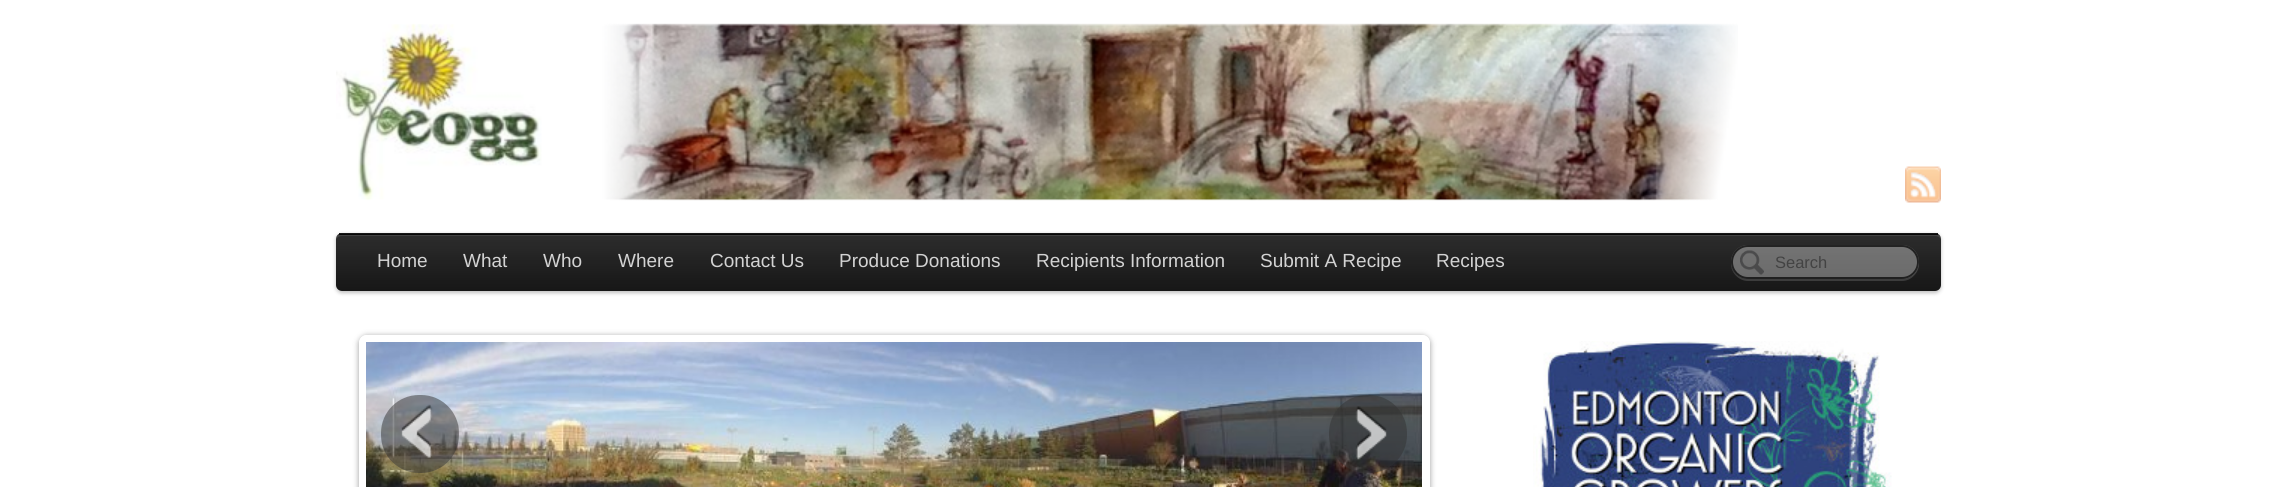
#include <cairo.h>
#include <math.h>
#include <stddef.h>


static void rgb(cairo_t *cr, int r, int g, int b)
{
	cairo_set_source_rgb(cr, r / 255.0, g / 255.0, b / 255.0);
}

static void face(cairo_t *cr, const char *family, double size, int italic, int bold)
{
	cairo_select_font_face(cr, family, italic ? CAIRO_FONT_SLANT_ITALIC : CAIRO_FONT_SLANT_NORMAL,
		bold ? CAIRO_FONT_WEIGHT_BOLD : CAIRO_FONT_WEIGHT_NORMAL);
	cairo_set_font_size(cr, size);
}

static void label(cairo_t *cr, double x, double y, const char *s)
{
	cairo_move_to(cr, x, y);
	cairo_show_text(cr, s);
}

static void rect(cairo_t *cr, double x, double y, double w, double h)
{
	cairo_rectangle(cr, x, y, w, h);
	cairo_fill(cr);
}

static void rrect(cairo_t *cr, double x, double y, double w, double h, double r)
{
	cairo_new_sub_path(cr);
	cairo_arc(cr, x + w - r, y + h - r, r, 0, M_PI / 2);
	cairo_arc(cr, x + r, y + h - r, r, M_PI / 2, M_PI);
	cairo_arc(cr, x + r, y + r, r, M_PI, 1.5 * M_PI);
	cairo_arc(cr, x + w - r, y + r, r, 1.5 * M_PI, 2 * M_PI);
	cairo_close_path(cr);
}

static void soft_shadow(cairo_t *cr, double x, double y, double w, double h, double r, double blur, double alpha)
{
	cairo_push_group_with_content(cr, CAIRO_CONTENT_ALPHA);
	cairo_set_operator(cr, CAIRO_OPERATOR_SOURCE);
	for (int i = 15; i >= -15 && fmin(w, h) + blur * i / 3 > 0; i -= 2) {
		double e = blur * i / 6;
		cairo_set_source_rgba(cr, 0, 0, 0, alpha * erfc((i - 1) / 8.5) / 2);
		rrect(cr, x - e, y - e, w + 2 * e, h + 2 * e, fmax(0, fmin(r + e + blur * .6, fmin(w, h) / 2 + e)));
		cairo_fill(cr);
	}
	cairo_pattern_t *soft = cairo_pop_group(cr);
	cairo_mask(cr, soft);
	cairo_pattern_destroy(soft);
}

static void image(cairo_t *cr, const char *path, double x, double y, double w, double h)
{
	cairo_surface_t *image = cairo_image_surface_create_from_png(path);
	cairo_save(cr);
	cairo_set_source_surface(cr, image, x, y);
	cairo_rectangle(cr, x, y, w, h);
	cairo_fill(cr);
	cairo_restore(cr);
	cairo_surface_destroy(image);
}

static void draw(cairo_t *cr) {
	cairo_pattern_t *gradient;
	rgb(cr, 255, 255, 255);
	cairo_paint(cr);
	image(cr, "image0.png", 336, 23, 1402, 178);
	image(cr, "image1.png", 1905, 166, 36, 37);
	cairo_save(cr);
	cairo_set_fill_rule(cr, CAIRO_FILL_RULE_EVEN_ODD);
	cairo_new_path(cr);
	cairo_move_to(cr, 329, 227);
	cairo_line_to(cr, 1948, 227);
	cairo_line_to(cr, 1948, 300);
	cairo_line_to(cr, 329, 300);
	cairo_close_path(cr);
	cairo_move_to(cr, 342, 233);
	cairo_line_to(cr, 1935, 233);
	cairo_curve_to(cr, 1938.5, 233, 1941, 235.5, 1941, 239);
	cairo_line_to(cr, 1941, 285);
	cairo_curve_to(cr, 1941, 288.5, 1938.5, 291, 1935, 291);
	cairo_line_to(cr, 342, 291);
	cairo_curve_to(cr, 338.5, 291, 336, 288.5, 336, 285);
	cairo_line_to(cr, 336, 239);
	cairo_curve_to(cr, 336, 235.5, 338.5, 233, 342, 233);
	cairo_close_path(cr);
	cairo_clip(cr);
	rgb(cr, 0, 0, 0);
	soft_shadow(cr, 336, 234, 1605, 59, 6, 2, 0.25);
	cairo_restore(cr);
	cairo_set_source_rgba(cr, 0, 0, 0, 0.12);
	rrect(cr, 336, 233, 1605, 58, 6);
	cairo_fill(cr);
	cairo_save(cr);
	rrect(cr, 336, 233, 1605, 58, 6);
	cairo_clip(cr);
	gradient = cairo_pattern_create_linear(1139, 234, 1139, 291);
	cairo_pattern_add_color_stop_rgba(gradient, 0, 0, 0, 0, 0.8);
	cairo_pattern_add_color_stop_rgba(gradient, 1, 0, 0, 0, 0.9);
	cairo_set_source(cr, gradient);
	cairo_pattern_destroy(gradient);
	cairo_new_path(cr);
	cairo_move_to(cr, 336, 234);
	cairo_line_to(cr, 1941, 234);
	cairo_line_to(cr, 1941, 285);
	cairo_curve_to(cr, 1941, 288.5, 1938.5, 291, 1935, 291);
	cairo_line_to(cr, 342, 291);
	cairo_curve_to(cr, 338.5, 291, 336, 288.5, 336, 285);
	cairo_close_path(cr);
	cairo_fill(cr);
	cairo_restore(cr);
	cairo_set_source_rgba(cr, 1, 1, 1, 0.1);
	cairo_new_path(cr);
	cairo_move_to(cr, 342, 236);
	cairo_line_to(cr, 1935, 236);
	cairo_curve_to(cr, 1938, 236, 1941, 238, 1941, 240);
	cairo_line_to(cr, 1941, 238);
	cairo_curve_to(cr, 1941, 236, 1938, 234, 1935, 234);
	cairo_line_to(cr, 342, 234);
	cairo_curve_to(cr, 339, 234, 336, 236, 336, 238);
	cairo_line_to(cr, 336, 240);
	cairo_curve_to(cr, 336, 238, 339, 236, 342, 236);
	cairo_close_path(cr);
	cairo_fill(cr);
	cairo_set_source_rgba(cr, 0, 0, 0, 0.9);
	rect(cr, 339, 233, 1599, 2);
	face(cr, "Liberation Sans", 19, 0, 0);
	rgb(cr, 211, 211, 211);
	label(cr, 377, 267, "Home");
	label(cr, 463, 267, "What");
	label(cr, 543, 267, "Who");
	label(cr, 618, 267, "Where");
	label(cr, 710, 267, "Contact Us");
	label(cr, 839, 267, "Produce Donations");
	label(cr, 1036, 267, "Recipients Information");
	label(cr, 1260, 267, "Submit A Recipe");
	label(cr, 1436, 267, "Recipes");
	cairo_set_source_rgba(cr, 1, 1, 1, 0.15);
	cairo_new_path(cr);
	cairo_move_to(cr, 1731, 263);
	cairo_line_to(cr, 1731, 264);
	cairo_curve_to(cr, 1731, 273, 1739, 281, 1748, 281);
	cairo_line_to(cr, 1902, 281);
	cairo_curve_to(cr, 1911, 281, 1919, 273, 1919, 264);
	cairo_line_to(cr, 1918, 258);
	cairo_line_to(cr, 1918, 262);
	cairo_curve_to(cr, 1918, 271, 1911, 279, 1901, 279);
	cairo_line_to(cr, 1748, 279);
	cairo_curve_to(cr, 1739, 279, 1731, 272, 1731, 263);
	cairo_close_path(cr);
	cairo_fill(cr);
	cairo_set_source_rgba(cr, 1, 1, 1, 0.35);
	rrect(cr, 1731, 245, 188, 34, 17);
	cairo_fill(cr);
	image(cr, "image2.png", 1740, 250, 24, 25);
	rrect(cr, 1732, 246, 186, 32, 16);
	cairo_set_source_rgba(cr, 0, 0, 0, 0.7);
	cairo_stroke(cr);
	face(cr, "Liberation Sans", 16.5, 0, 0);
	rgb(cr, 67, 67, 67);
	label(cr, 1775, 268, "Search");
	cairo_save(cr);
	cairo_set_fill_rule(cr, CAIRO_FILL_RULE_EVEN_ODD);
	cairo_new_path(cr);
	cairo_move_to(cr, 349, 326);
	cairo_line_to(cr, 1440, 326);
	cairo_line_to(cr, 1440, 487);
	cairo_line_to(cr, 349, 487);
	cairo_close_path(cr);
	cairo_move_to(cr, 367, 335);
	cairo_line_to(cr, 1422, 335);
	cairo_curve_to(cr, 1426.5, 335, 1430, 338.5, 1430, 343);
	cairo_line_to(cr, 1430, 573);
	cairo_curve_to(cr, 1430, 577.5, 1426.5, 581, 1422, 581);
	cairo_line_to(cr, 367, 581);
	cairo_curve_to(cr, 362.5, 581, 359, 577.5, 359, 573);
	cairo_line_to(cr, 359, 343);
	cairo_curve_to(cr, 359, 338.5, 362.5, 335, 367, 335);
	cairo_close_path(cr);
	cairo_clip(cr);
	rgb(cr, 0, 0, 0);
	soft_shadow(cr, 359, 336, 1071, 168, 8, 3, 0.4);
	cairo_restore(cr);
	cairo_set_source_rgba(cr, 1, 1, 1, 0.4);
	rrect(cr, 359, 335, 1071, 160, 8);
	cairo_fill(cr);
	image(cr, "image3.png", 366, 342, 1056, 145);
	cairo_set_source_rgba(cr, 0.196, 0.196, 0.196, 0.5);
	rrect(cr, 381, 395, 78, 78, 38);
	cairo_fill(cr);
	image(cr, "image4.png", 401, 404, 32, 54);
	rrect(cr, 1329, 395, 78, 78, 38);
	cairo_fill(cr);
	image(cr, "image5.png", 1355, 406, 32, 54);
	image(cr, "image6.png", 1533, 341, 359, 146);
}

int main(void) {
	cairo_surface_t *surface = cairo_image_surface_create(CAIRO_FORMAT_RGB24, 2276, 487);
	cairo_t *cr = cairo_create(surface);
	cairo_font_options_t *options = cairo_font_options_create();
	cairo_font_options_set_hint_metrics(options, CAIRO_HINT_METRICS_OFF);
	cairo_font_options_set_hint_style(options, CAIRO_HINT_STYLE_NONE);
	cairo_set_font_options(cr, options);
	cairo_set_miter_limit(cr, 4);
	draw(cr);
	cairo_surface_write_to_png(surface, "render.png");
	cairo_font_options_destroy(options);
	cairo_destroy(cr);
	cairo_surface_destroy(surface);
	return 0;
}
